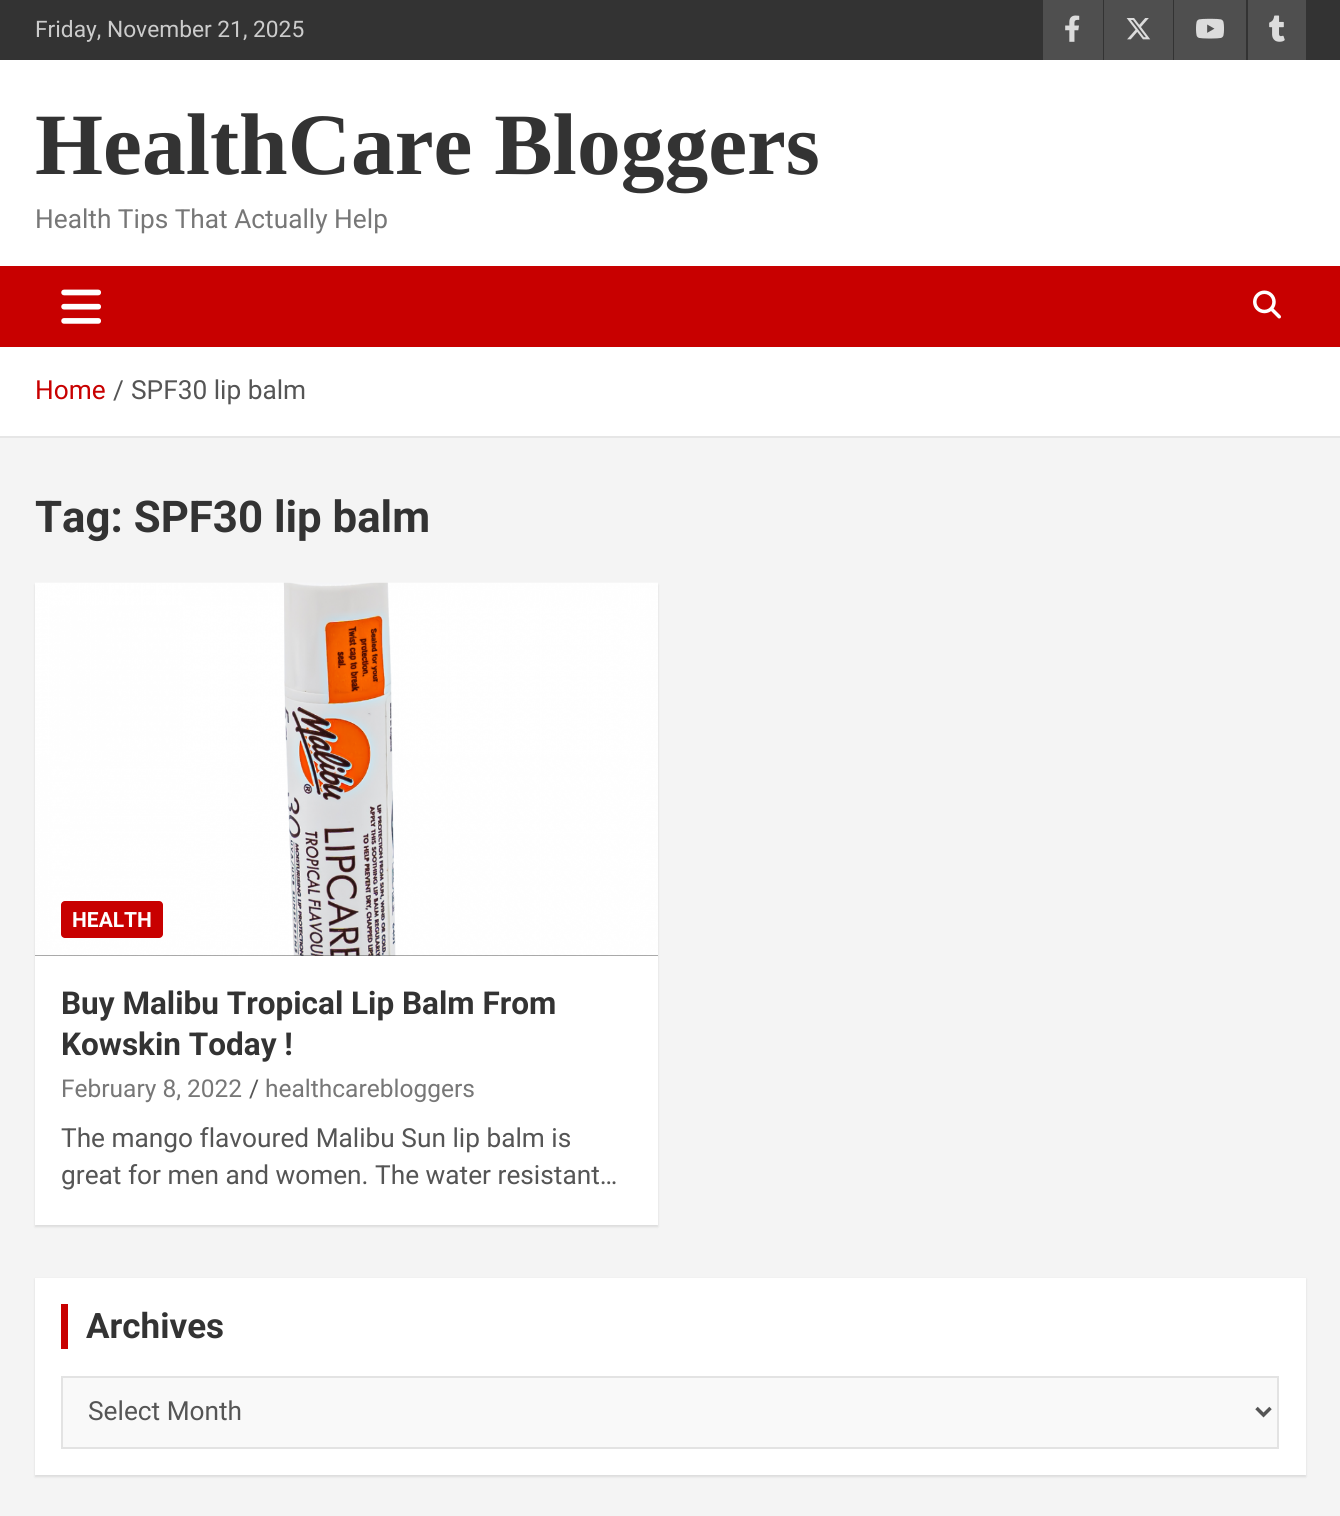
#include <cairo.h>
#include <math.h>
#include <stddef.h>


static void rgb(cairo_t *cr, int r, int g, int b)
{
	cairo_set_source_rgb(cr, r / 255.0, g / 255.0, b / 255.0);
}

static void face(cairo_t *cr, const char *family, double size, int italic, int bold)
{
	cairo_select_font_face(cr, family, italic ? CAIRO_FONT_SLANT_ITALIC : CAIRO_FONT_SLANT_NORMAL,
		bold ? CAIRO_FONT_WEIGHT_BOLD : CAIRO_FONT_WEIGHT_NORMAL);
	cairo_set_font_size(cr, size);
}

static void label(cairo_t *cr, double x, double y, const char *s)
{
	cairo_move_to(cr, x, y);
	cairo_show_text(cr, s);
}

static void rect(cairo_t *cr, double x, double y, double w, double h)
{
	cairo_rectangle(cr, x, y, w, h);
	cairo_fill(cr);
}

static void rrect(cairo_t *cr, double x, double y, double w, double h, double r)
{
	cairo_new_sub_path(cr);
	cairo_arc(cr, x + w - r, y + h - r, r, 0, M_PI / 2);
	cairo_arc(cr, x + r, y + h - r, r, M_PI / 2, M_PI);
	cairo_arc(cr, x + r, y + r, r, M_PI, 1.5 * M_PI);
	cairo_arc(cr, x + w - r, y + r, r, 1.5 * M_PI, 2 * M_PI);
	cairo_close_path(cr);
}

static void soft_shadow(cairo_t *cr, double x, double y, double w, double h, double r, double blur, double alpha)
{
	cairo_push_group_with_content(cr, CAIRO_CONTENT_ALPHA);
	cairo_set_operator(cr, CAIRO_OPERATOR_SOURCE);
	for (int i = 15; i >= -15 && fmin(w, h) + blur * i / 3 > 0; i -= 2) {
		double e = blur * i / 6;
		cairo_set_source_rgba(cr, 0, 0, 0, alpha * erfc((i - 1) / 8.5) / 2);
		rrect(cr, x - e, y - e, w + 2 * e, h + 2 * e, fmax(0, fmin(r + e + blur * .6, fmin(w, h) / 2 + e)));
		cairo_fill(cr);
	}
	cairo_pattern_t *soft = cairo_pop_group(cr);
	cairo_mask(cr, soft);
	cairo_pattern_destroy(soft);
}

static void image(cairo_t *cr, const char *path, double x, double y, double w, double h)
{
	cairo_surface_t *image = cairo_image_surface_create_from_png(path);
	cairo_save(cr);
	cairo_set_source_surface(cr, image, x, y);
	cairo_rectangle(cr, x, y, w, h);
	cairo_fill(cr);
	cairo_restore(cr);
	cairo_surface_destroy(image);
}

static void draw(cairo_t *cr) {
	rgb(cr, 244, 244, 244);
	cairo_paint(cr);
	rgb(cr, 51, 51, 51);
	rect(cr, 0, 0, 1340, 60);
	face(cr, "Roboto", 22.75, 0, 0);
	rgb(cr, 204, 204, 204);
	label(cr, 35, 37, "Friday, November 21, 2025");
	rgb(cr, 79, 79, 79);
	rect(cr, 1043, 0, 60, 60);
	image(cr, "image0.png", 1065, 15, 15, 27);
	rect(cr, 1104, 0, 69, 60);
	image(cr, "image1.png", 1126, 18, 25, 22);
	rect(cr, 1174, 0, 72, 60);
	image(cr, "image2.png", 1196, 18, 28, 21);
	rect(cr, 1248, 0, 58, 60);
	image(cr, "image3.png", 1269, 15, 16, 27);
	rgb(cr, 255, 255, 255);
	rect(cr, 0, 60, 1340, 206);
	face(cr, "Liberation Serif", 87.5, 0, 1);
	rgb(cr, 51, 51, 51);
	label(cr, 35, 174, "HealthCare Bloggers");
	face(cr, "Roboto", 26.25, 0, 0);
	rgb(cr, 119, 119, 119);
	label(cr, 35, 228, "Health Tips That Actually Help");
	rgb(cr, 200, 0, 0);
	rect(cr, 0, 266, 1340, 81);
	image(cr, "image4.png", 61, 289, 40, 35);
	image(cr, "image5.png", 1253, 290, 28, 29);
	rgb(cr, 255, 255, 255);
	rect(cr, 0, 347, 1340, 89);
	rgb(cr, 230, 230, 230);
	rect(cr, 0, 436, 1340, 2);
	rgb(cr, 200, 0, 0);
	label(cr, 35, 399, "Home");
	rgb(cr, 85, 85, 85);
	label(cr, 113, 399, "/");
	label(cr, 131, 399, "SPF30 lip balm");
	face(cr, "Roboto", 43.75, 0, 1);
	rgb(cr, 51, 51, 51);
	label(cr, 35, 532, "Tag: SPF30 lip balm");
	rgb(cr, 0, 0, 0);
	soft_shadow(cr, 35, 585, 623, 642, 0, 1, 0.1);
	rgb(cr, 255, 255, 255);
	rect(cr, 35, 956, 623, 269);
	rgb(cr, 85, 85, 85);
	rect(cr, 35, 955, 623, 1);
	image(cr, "image6.png", 35, 582, 623, 374);
	rgb(cr, 200, 0, 0);
	rrect(cr, 61, 901, 102, 37, 4);
	cairo_fill(cr);
	face(cr, "Roboto", 21, 0, 1);
	rgb(cr, 255, 255, 255);
	label(cr, 72, 927, "HEALTH");
	face(cr, "Roboto", 31.5, 0, 1);
	rgb(cr, 51, 51, 51);
	label(cr, 61, 1014, "Buy Malibu Tropical Lip Balm From");
	label(cr, 61, 1055, "Kowskin Today !");
	face(cr, "Roboto", 24.5, 0, 0);
	rgb(cr, 119, 119, 119);
	label(cr, 61, 1097, "February 8, 2022");
	rgb(cr, 85, 85, 85);
	label(cr, 249, 1097, "/");
	rgb(cr, 119, 119, 119);
	label(cr, 265, 1097, "healthcarebloggers");
	face(cr, "Roboto", 26.25, 0, 0);
	rgb(cr, 85, 85, 85);
	label(cr, 61, 1147, "The mango flavoured Malibu Sun lip balm is");
	label(cr, 61, 1184, "great for men and women. The water resistant…");
	rgb(cr, 0, 0, 0);
	soft_shadow(cr, 35, 1279, 1271, 198, 0, 1, 0.1);
	rgb(cr, 255, 255, 255);
	rect(cr, 35, 1278, 1271, 197);
	rgb(cr, 200, 0, 0);
	rect(cr, 61, 1304, 7, 45);
	face(cr, "Roboto", 35, 0, 1);
	rgb(cr, 51, 51, 51);
	label(cr, 86, 1338, "Archives");
	rgb(cr, 249, 249, 249);
	cairo_rectangle(cr, 62, 1377, 1216, 71);
	cairo_fill_preserve(cr);
	rgb(cr, 227, 227, 227);
	cairo_stroke(cr);
	cairo_new_path(cr);
	cairo_move_to(cr, 1256.5, 1408);
	cairo_line_to(cr, 1263.5, 1415);
	cairo_line_to(cr, 1270.5, 1408);
	rgb(cr, 85, 85, 85);
	cairo_set_line_width(cr, 3.5);
	cairo_stroke(cr);
	face(cr, "Roboto", 26.25, 0, 0);
	label(cr, 88, 1420, "Select Month");
}

int main(void) {
	cairo_surface_t *surface = cairo_image_surface_create(CAIRO_FORMAT_RGB24, 1340, 1516);
	cairo_t *cr = cairo_create(surface);
	cairo_font_options_t *options = cairo_font_options_create();
	cairo_font_options_set_hint_metrics(options, CAIRO_HINT_METRICS_OFF);
	cairo_font_options_set_hint_style(options, CAIRO_HINT_STYLE_NONE);
	cairo_set_font_options(cr, options);
	cairo_set_miter_limit(cr, 4);
	draw(cr);
	cairo_surface_write_to_png(surface, "render.png");
	cairo_font_options_destroy(options);
	cairo_destroy(cr);
	cairo_surface_destroy(surface);
	return 0;
}
